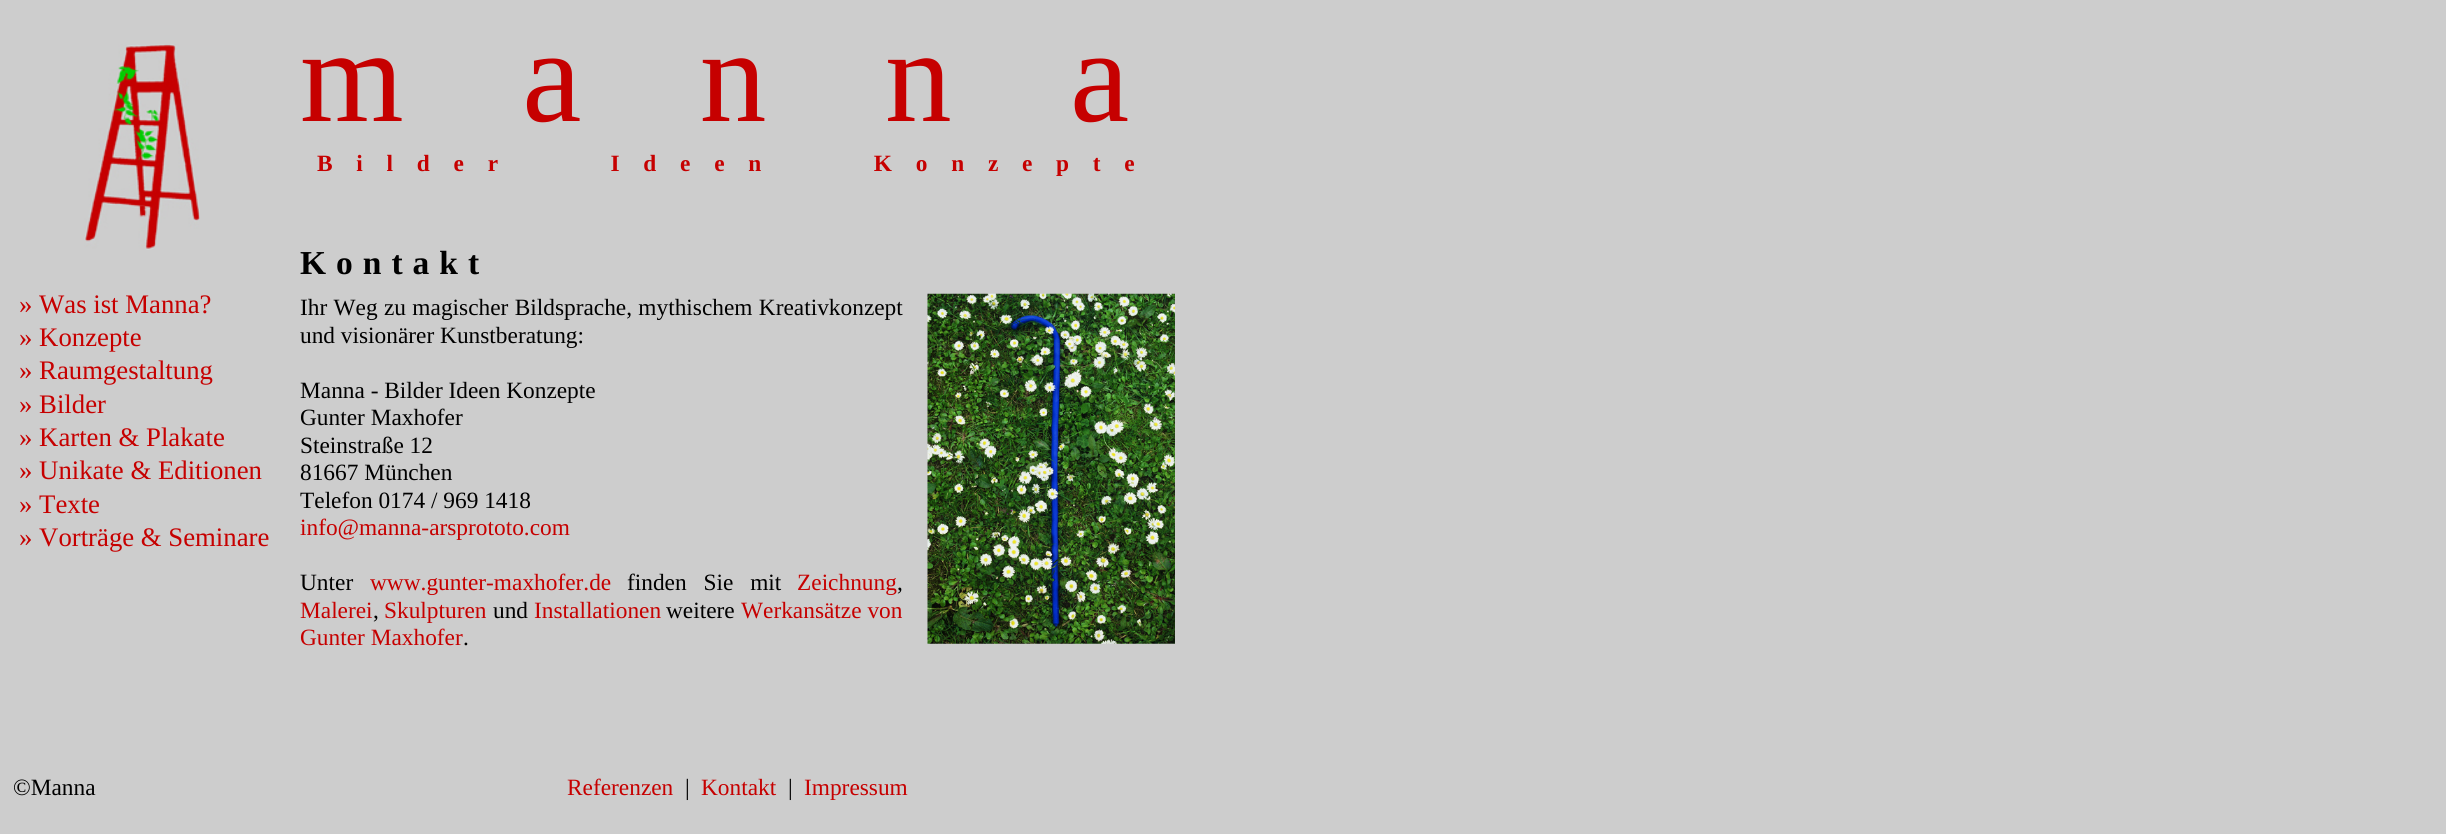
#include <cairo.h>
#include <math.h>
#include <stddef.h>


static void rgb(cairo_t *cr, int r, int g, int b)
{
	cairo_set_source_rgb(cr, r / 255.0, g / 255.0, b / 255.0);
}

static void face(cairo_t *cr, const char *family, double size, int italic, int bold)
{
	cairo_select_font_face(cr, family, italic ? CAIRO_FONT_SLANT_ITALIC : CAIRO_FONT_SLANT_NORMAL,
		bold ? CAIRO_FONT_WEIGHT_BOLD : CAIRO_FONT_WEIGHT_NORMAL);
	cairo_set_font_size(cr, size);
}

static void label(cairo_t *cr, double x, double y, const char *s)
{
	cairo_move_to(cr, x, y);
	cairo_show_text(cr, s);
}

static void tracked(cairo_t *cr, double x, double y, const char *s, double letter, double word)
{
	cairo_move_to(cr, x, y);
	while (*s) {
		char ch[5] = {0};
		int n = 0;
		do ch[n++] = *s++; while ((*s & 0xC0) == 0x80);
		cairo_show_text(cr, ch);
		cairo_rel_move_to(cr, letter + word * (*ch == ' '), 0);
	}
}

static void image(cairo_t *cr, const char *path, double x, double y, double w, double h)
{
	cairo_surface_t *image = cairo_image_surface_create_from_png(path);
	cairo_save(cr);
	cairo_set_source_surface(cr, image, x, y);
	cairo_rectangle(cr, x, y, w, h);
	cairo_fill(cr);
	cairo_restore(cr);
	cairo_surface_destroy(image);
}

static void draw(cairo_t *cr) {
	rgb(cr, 205, 205, 205);
	cairo_paint(cr);
	image(cr, "image0.png", 84, 44, 116, 206);
	face(cr, "Liberation Serif", 133.25, 0, 0);
	rgb(cr, 198, 0, 0);
	tracked(cr, 300, 121, "manna", 118.5, 0);
	face(cr, "Liberation Serif", 23.35, 0, 1);
	tracked(cr, 317, 171, "Bilder   Ideen   Konzepte", 23.75, 0);
	face(cr, "Liberation Serif", 33.5, 0, 1);
	rgb(cr, 0, 0, 0);
	tracked(cr, 300, 274, "Kontakt", 10, 0);
	face(cr, "Liberation Serif", 26.75, 0, 0);
	rgb(cr, 198, 0, 0);
	label(cr, 19, 313, "» Was ist Manna?");
	label(cr, 19, 346, "» Konzepte");
	label(cr, 19, 379, "» Raumgestaltung");
	label(cr, 19, 413, "» Bilder");
	label(cr, 19, 446, "» Karten & Plakate");
	label(cr, 19, 479, "» Unikate & Editionen");
	label(cr, 19, 513, "» Texte");
	label(cr, 19, 546, "» Vorträge & Seminare");
	face(cr, "Liberation Serif", 23.35, 0, 0);
	rgb(cr, 0, 0, 0);
	tracked(cr, 300, 315, "Ihr Weg zu magischer Bildsprache, mythischem Kreativkonzept", 0, 0.5);
	image(cr, "image1.png", 927, 293, 248, 351);
	label(cr, 300, 343, "und visionärer Kunstberatung:");
	label(cr, 300, 398, "Manna - Bilder Ideen Konzepte");
	label(cr, 300, 425, "Gunter Maxhofer");
	label(cr, 300, 453, "Steinstraße 12");
	label(cr, 300, 480, "81667 München");
	label(cr, 300, 508, "Telefon 0174 / 969 1418");
	rgb(cr, 198, 0, 0);
	label(cr, 300, 535, "info@manna-arsprototo.com");
	rgb(cr, 0, 0, 0);
	label(cr, 300, 590, "Unter");
	rgb(cr, 198, 0, 0);
	label(cr, 370, 590, "www.gunter-maxhofer.de");
	rgb(cr, 0, 0, 0);
	tracked(cr, 627, 590, "finden Sie mit", 0, 11);
	rgb(cr, 198, 0, 0);
	label(cr, 797, 590, "Zeichnung");
	rgb(cr, 0, 0, 0);
	label(cr, 897, 590, ",");
	rgb(cr, 198, 0, 0);
	label(cr, 300, 618, "Malerei");
	rgb(cr, 0, 0, 0);
	label(cr, 373, 618, ",");
	rgb(cr, 198, 0, 0);
	label(cr, 384, 618, "Skulpturen");
	rgb(cr, 0, 0, 0);
	label(cr, 493, 618, "und");
	rgb(cr, 198, 0, 0);
	label(cr, 534, 618, "Installationen");
	rgb(cr, 0, 0, 0);
	label(cr, 666, 618, "weitere");
	rgb(cr, 198, 0, 0);
	label(cr, 741, 618, "Werkansätze von");
	label(cr, 300, 645, "Gunter Maxhofer");
	rgb(cr, 0, 0, 0);
	label(cr, 463, 645, ".");
	label(cr, 13, 795, "©Manna");
	rgb(cr, 198, 0, 0);
	label(cr, 567, 795, "Referenzen");
	rgb(cr, 0, 0, 0);
	label(cr, 685, 795, "|");
	rgb(cr, 198, 0, 0);
	label(cr, 701, 795, "Kontakt");
	rgb(cr, 0, 0, 0);
	label(cr, 788, 795, "|");
	rgb(cr, 198, 0, 0);
	label(cr, 804, 795, "Impressum");
}

int main(void) {
	cairo_surface_t *surface = cairo_image_surface_create(CAIRO_FORMAT_RGB24, 2446, 834);
	cairo_t *cr = cairo_create(surface);
	cairo_font_options_t *options = cairo_font_options_create();
	cairo_font_options_set_hint_metrics(options, CAIRO_HINT_METRICS_OFF);
	cairo_font_options_set_hint_style(options, CAIRO_HINT_STYLE_NONE);
	cairo_set_font_options(cr, options);
	cairo_set_miter_limit(cr, 4);
	draw(cr);
	cairo_surface_write_to_png(surface, "render.png");
	cairo_font_options_destroy(options);
	cairo_destroy(cr);
	cairo_surface_destroy(surface);
	return 0;
}
